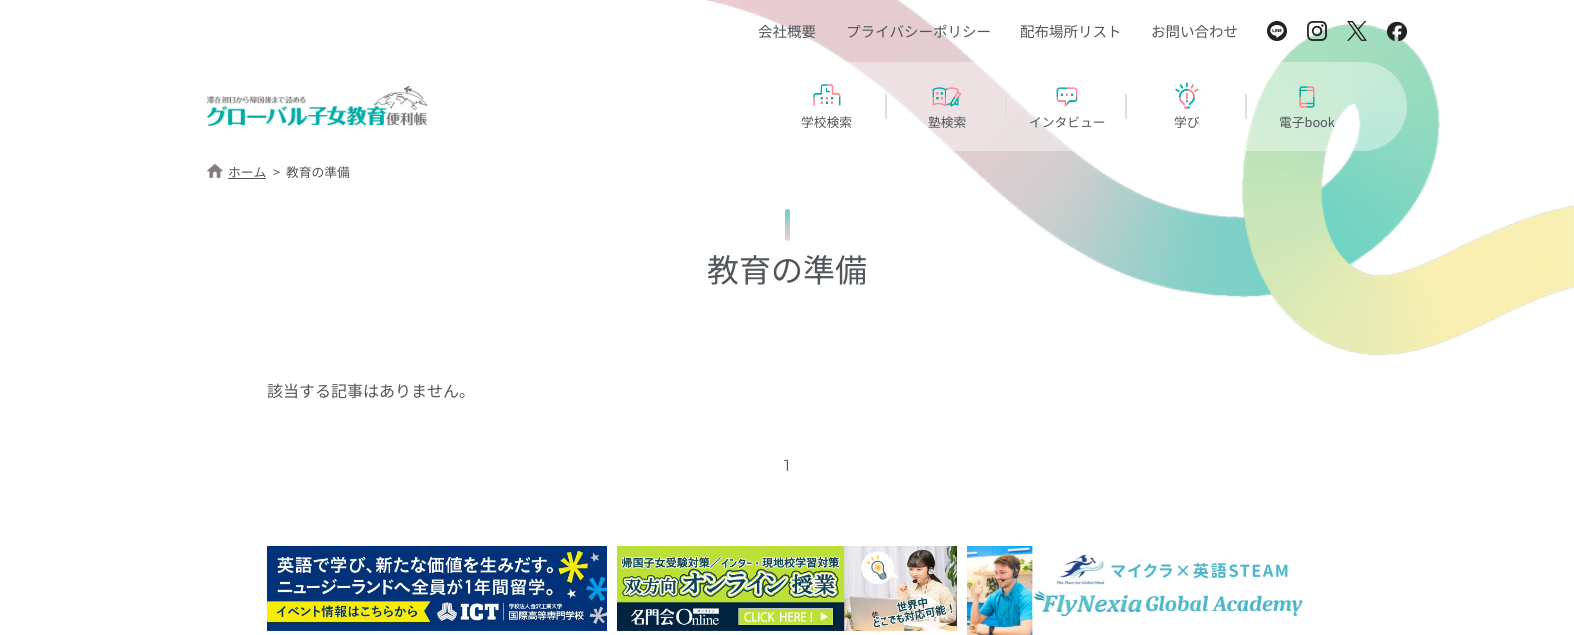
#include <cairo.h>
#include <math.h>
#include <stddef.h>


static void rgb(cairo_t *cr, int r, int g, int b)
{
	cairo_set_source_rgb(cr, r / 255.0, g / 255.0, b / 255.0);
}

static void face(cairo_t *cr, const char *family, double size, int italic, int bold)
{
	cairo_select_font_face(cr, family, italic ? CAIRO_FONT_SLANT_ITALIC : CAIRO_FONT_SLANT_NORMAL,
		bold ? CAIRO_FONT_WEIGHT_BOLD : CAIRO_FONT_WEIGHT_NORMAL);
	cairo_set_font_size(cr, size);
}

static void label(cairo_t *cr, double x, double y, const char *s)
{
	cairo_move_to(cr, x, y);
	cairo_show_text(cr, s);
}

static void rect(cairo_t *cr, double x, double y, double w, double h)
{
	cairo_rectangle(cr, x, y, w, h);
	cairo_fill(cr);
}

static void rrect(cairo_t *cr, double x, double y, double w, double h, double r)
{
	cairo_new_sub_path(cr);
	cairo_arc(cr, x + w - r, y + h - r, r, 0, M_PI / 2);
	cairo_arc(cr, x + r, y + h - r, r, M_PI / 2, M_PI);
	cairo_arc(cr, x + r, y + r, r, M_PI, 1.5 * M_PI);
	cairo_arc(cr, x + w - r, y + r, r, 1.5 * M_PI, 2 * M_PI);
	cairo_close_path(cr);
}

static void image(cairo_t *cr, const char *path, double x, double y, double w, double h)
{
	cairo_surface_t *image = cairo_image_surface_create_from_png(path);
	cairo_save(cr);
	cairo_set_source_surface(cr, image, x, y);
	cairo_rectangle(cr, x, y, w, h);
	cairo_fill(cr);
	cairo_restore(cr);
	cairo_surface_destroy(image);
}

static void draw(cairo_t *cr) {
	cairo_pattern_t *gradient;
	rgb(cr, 255, 255, 255);
	cairo_paint(cr);
	image(cr, "image0.png", 707, 0, 867, 356);
	face(cr, "Noto Sans JP", 14.5, 0, 0);
	rgb(cr, 81, 86, 90);
	label(cr, 758, 37, "会社概要");
	label(cr, 846, 37, "プライバシーポリシー");
	label(cr, 1020, 37, "配布場所リスト");
	label(cr, 1151, 37, "お問い合わせ");
	image(cr, "image1.png", 1267, 21, 20, 20);
	image(cr, "image2.png", 1307, 21, 20, 20);
	image(cr, "image3.png", 1347, 21, 20, 20);
	image(cr, "image4.png", 1387, 21, 20, 20);
	cairo_set_source_rgba(cr, 1, 1, 1, 0.4);
	rrect(cr, 167, 62, 1240, 89, 44.5);
	cairo_fill(cr);
	image(cr, "image5.png", 207, 86, 220, 40);
	rgb(cr, 226, 222, 220);
	rect(cr, 885, 94, 2, 25);
	image(cr, "image6.png", 813, 84, 28, 22);
	face(cr, "Noto Sans JP", 12.75, 0, 0);
	rgb(cr, 81, 86, 90);
	label(cr, 801, 127, "学校検索");
	rgb(cr, 226, 222, 220);
	rect(cr, 1005, 94, 2, 25);
	image(cr, "image7.png", 932, 87, 29, 20);
	rgb(cr, 81, 86, 90);
	label(cr, 928, 127, "塾検索");
	rgb(cr, 226, 222, 220);
	rect(cr, 1125, 94, 2, 25);
	image(cr, "image8.png", 1056, 87, 22, 20);
	rgb(cr, 81, 86, 90);
	label(cr, 1029, 127, "インタビュー");
	rgb(cr, 226, 222, 220);
	rect(cr, 1245, 94, 2, 25);
	image(cr, "image9.png", 1175, 82, 24, 28);
	rgb(cr, 81, 86, 90);
	label(cr, 1174, 127, "学び");
	image(cr, "image10.png", 1299, 86, 16, 22);
	label(cr, 1279, 127, "電子book");
	image(cr, "image11.png", 207, 164, 16, 14);
	label(cr, 228, 177, "ホーム");
	rect(cr, 228, 178, 38, 1);
	label(cr, 273, 177, ">");
	label(cr, 286, 177, "教育の準備");
	gradient = cairo_pattern_create_linear(787, 241, 787, 209);
	cairo_pattern_add_color_stop_rgba(gradient, 0, 0.969, 0.796, 0.824, 1);
	cairo_pattern_add_color_stop_rgba(gradient, 1, 0.427, 0.82, 0.769, 1);
	cairo_set_source(cr, gradient);
	cairo_pattern_destroy(gradient);
	rrect(cr, 785, 209, 5, 32, 2.5);
	cairo_fill(cr);
	face(cr, "Noto Sans JP", 32, 0, 0);
	rgb(cr, 81, 86, 90);
	label(cr, 707, 282, "教育の準備");
	face(cr, "Noto Sans JP", 16, 0, 0);
	label(cr, 267, 397, "該当する記事はありません。");
	face(cr, "Montserrat", 16, 0, 0);
	label(cr, 784, 471, "1");
	image(cr, "image12.png", 267, 546, 340, 85);
	image(cr, "image13.png", 617, 546, 340, 85);
	image(cr, "image14.png", 967, 546, 336, 89);
}

int main(void) {
	cairo_surface_t *surface = cairo_image_surface_create(CAIRO_FORMAT_RGB24, 1574, 635);
	cairo_t *cr = cairo_create(surface);
	cairo_font_options_t *options = cairo_font_options_create();
	cairo_font_options_set_hint_metrics(options, CAIRO_HINT_METRICS_OFF);
	cairo_font_options_set_hint_style(options, CAIRO_HINT_STYLE_NONE);
	cairo_set_font_options(cr, options);
	cairo_set_miter_limit(cr, 4);
	draw(cr);
	cairo_surface_write_to_png(surface, "render.png");
	cairo_font_options_destroy(options);
	cairo_destroy(cr);
	cairo_surface_destroy(surface);
	return 0;
}
